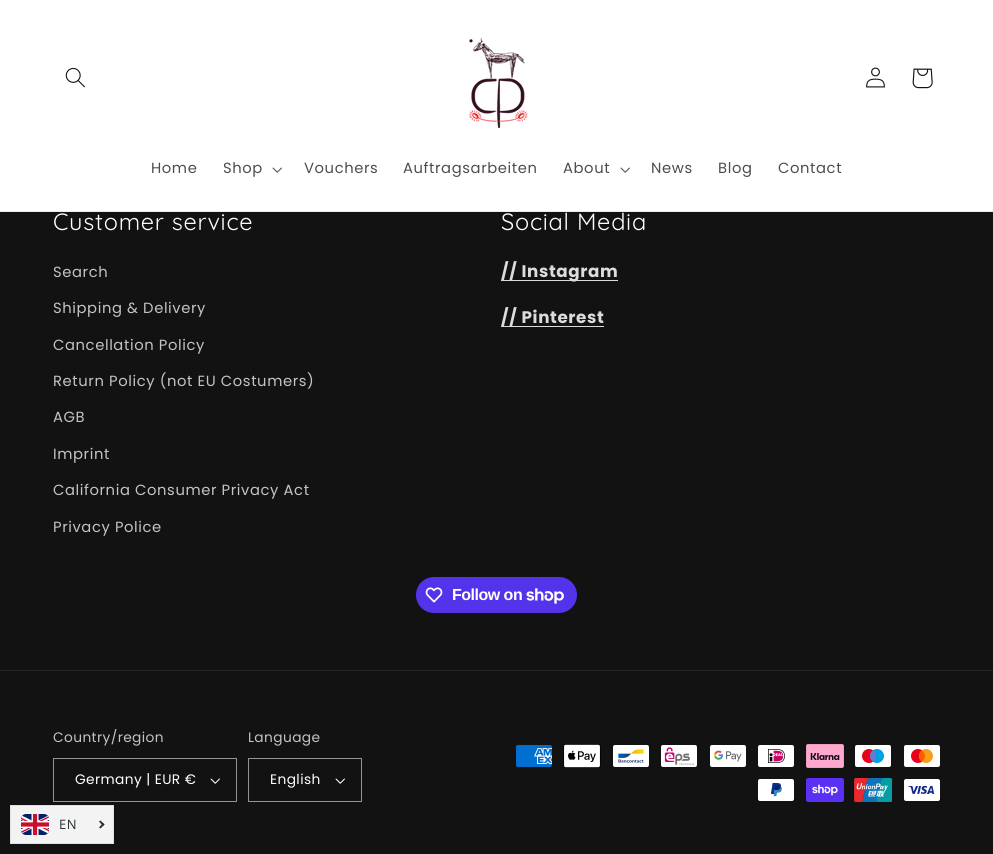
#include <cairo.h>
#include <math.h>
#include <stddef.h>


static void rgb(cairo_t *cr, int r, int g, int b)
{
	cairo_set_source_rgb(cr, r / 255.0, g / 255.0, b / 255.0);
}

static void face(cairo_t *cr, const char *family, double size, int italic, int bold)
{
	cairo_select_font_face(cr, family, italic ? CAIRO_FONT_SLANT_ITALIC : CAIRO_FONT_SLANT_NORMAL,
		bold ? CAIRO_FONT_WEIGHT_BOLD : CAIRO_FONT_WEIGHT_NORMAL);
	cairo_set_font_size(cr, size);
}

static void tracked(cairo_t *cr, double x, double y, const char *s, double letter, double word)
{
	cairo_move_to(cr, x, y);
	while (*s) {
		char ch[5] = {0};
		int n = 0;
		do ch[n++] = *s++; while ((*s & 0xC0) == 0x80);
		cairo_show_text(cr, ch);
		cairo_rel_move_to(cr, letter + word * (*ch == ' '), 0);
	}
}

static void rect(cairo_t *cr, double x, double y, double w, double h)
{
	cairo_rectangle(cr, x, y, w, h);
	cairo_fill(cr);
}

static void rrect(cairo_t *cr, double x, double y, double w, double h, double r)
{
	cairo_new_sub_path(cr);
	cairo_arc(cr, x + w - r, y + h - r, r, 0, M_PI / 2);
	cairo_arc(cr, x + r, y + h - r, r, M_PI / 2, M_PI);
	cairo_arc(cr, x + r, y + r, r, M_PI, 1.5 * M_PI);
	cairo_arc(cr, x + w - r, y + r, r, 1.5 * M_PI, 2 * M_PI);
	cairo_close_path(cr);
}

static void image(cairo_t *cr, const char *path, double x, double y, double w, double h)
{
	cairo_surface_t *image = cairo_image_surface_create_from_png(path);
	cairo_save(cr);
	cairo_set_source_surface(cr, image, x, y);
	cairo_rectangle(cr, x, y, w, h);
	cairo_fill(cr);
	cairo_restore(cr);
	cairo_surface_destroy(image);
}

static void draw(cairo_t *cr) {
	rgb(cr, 18, 18, 18);
	cairo_paint(cr);
	rgb(cr, 255, 255, 255);
	rect(cr, 0, 0, 993, 211);
	rgb(cr, 236, 236, 236);
	rect(cr, 0, 211, 993, 1);
	image(cr, "image0.png", 65, 67, 20, 21);
	image(cr, "image1.png", 469, 38, 59, 90);
	image(cr, "image2.png", 866, 67, 19, 21);
	image(cr, "image3.png", 912, 68, 21, 21);
	face(cr, "Poppins", 14.75, 0, 0);
	rgb(cr, 77, 77, 77);
	tracked(cr, 151, 173, "Home", 0.6, 0);
	tracked(cr, 223, 173, "Shop", 0.6, 0);
	image(cr, "image4.png", 272, 167, 10, 6);
	tracked(cr, 304, 173, "Vouchers", 0.6, 0);
	tracked(cr, 403, 173, "Auftragsarbeiten", 0.6, 0);
	tracked(cr, 563, 173, "About", 0.6, 0);
	image(cr, "image4.png", 620, 167, 10, 6);
	tracked(cr, 651, 173, "News", 0.6, 0);
	tracked(cr, 718, 173, "Blog", 0.6, 0);
	tracked(cr, 778, 173, "Contact", 0.6, 0);
	face(cr, "Quicksand", 23.5, 0, 0);
	rgb(cr, 255, 255, 255);
	tracked(cr, 53, 230, "Customer service", 0.75, 0);
	face(cr, "Poppins", 14.75, 0, 0);
	rgb(cr, 196, 196, 196);
	tracked(cr, 53, 277, "Search", 0.6, 0);
	tracked(cr, 53, 313, "Shipping & Delivery", 0.6, 0);
	tracked(cr, 53, 350, "Cancellation Policy", 0.6, 0);
	tracked(cr, 53, 386, "Return Policy (not EU Costumers)", 0.6, 0);
	tracked(cr, 53, 422, "AGB", 0.6, 0);
	tracked(cr, 53, 459, "Imprint", 0.6, 0);
	tracked(cr, 53, 495, "California Consumer Privacy Act", 0.6, 0);
	tracked(cr, 53, 532, "Privacy Police", 0.6, 0);
	face(cr, "Quicksand", 23.5, 0, 0);
	rgb(cr, 255, 255, 255);
	tracked(cr, 501, 230, "Social Media", 0.75, 0);
	rgb(cr, 219, 219, 219);
	rect(cr, 501, 280, 117, 1);
	face(cr, "Poppins", 16.75, 0, 1);
	rgb(cr, 220, 220, 220);
	tracked(cr, 501, 277, "// Instagram", 0.6, 0);
	rgb(cr, 219, 219, 219);
	rect(cr, 501, 326, 103, 1);
	rgb(cr, 220, 220, 220);
	tracked(cr, 501, 323, "// Pinterest", 0.6, 0);
	rgb(cr, 84, 51, 235);
	rrect(cr, 416, 577, 161, 36, 18);
	cairo_fill(cr);
	image(cr, "image5.png", 425, 587, 18, 16);
	face(cr, "Liberation Sans", 16, 0, 1);
	rgb(cr, 255, 255, 255);
	tracked(cr, 452, 600, "Follow on", -0.5, 0);
	image(cr, "image6.png", 526, 588, 38, 16);
	rgb(cr, 37, 37, 37);
	rect(cr, 0, 670, 993, 1);
	face(cr, "Poppins", 13.75, 0, 0);
	rgb(cr, 196, 196, 196);
	tracked(cr, 53, 742, "Country/region", 0.4, 0);
	image(cr, "image7.png", 210, 778, 10, 6);
	cairo_rectangle(cr, 53.5, 758.5, 183, 43);
	rgb(cr, 148, 148, 148);
	cairo_set_line_width(cr, 1);
	cairo_stroke(cr);
	rgb(cr, 255, 255, 255);
	tracked(cr, 75, 784, "Germany | EUR €", 0.4, 0);
	rgb(cr, 196, 196, 196);
	tracked(cr, 248, 742, "Language", 0.4, 0);
	image(cr, "image7.png", 335, 778, 10, 6);
	cairo_rectangle(cr, 248.5, 758.5, 113, 43);
	rgb(cr, 148, 148, 148);
	cairo_stroke(cr);
	rgb(cr, 255, 255, 255);
	tracked(cr, 270, 784, "English", 0.4, 0);
	image(cr, "image8.png", 516, 745, 36, 22);
	image(cr, "image9.png", 563, 744, 38, 24);
	image(cr, "image10.png", 613, 745, 36, 22);
	image(cr, "image11.png", 661, 745, 36, 22);
	image(cr, "image12.png", 710, 745, 36, 22);
	image(cr, "image13.png", 758, 745, 36, 22);
	image(cr, "image14.png", 806, 744, 38, 24);
	image(cr, "image15.png", 855, 745, 36, 22);
	image(cr, "image16.png", 904, 745, 36, 22);
	image(cr, "image17.png", 758, 779, 36, 22);
	image(cr, "image18.png", 806, 778, 38, 24);
	image(cr, "image19.png", 854, 778, 38, 24);
	image(cr, "image20.png", 904, 779, 36, 22);
	rgb(cr, 243, 243, 243);
	cairo_rectangle(cr, 10.5, 805.5, 103, 38);
	cairo_fill_preserve(cr);
	rgb(cr, 224, 224, 224);
	cairo_stroke(cr);
	image(cr, "image21.png", 21, 814, 28, 21);
	face(cr, "Open Sans", 13, 0, 0);
	rgb(cr, 39, 46, 49);
	tracked(cr, 59, 829, "EN", 0.6, 0);
	cairo_new_path(cr);
	cairo_move_to(cr, 100.5, 820.5);
	cairo_line_to(cr, 104.5, 824.5);
	cairo_line_to(cr, 103, 826);
	cairo_line_to(cr, 99, 821.5);
	cairo_close_path(cr);
	cairo_fill(cr);
	cairo_new_path(cr);
	cairo_move_to(cr, 103, 823);
	cairo_line_to(cr, 104.5, 824.5);
	cairo_line_to(cr, 100.5, 828.5);
	cairo_line_to(cr, 99, 827.5);
	cairo_close_path(cr);
	cairo_fill(cr);
}

int main(void) {
	cairo_surface_t *surface = cairo_image_surface_create(CAIRO_FORMAT_RGB24, 993, 854);
	cairo_t *cr = cairo_create(surface);
	cairo_font_options_t *options = cairo_font_options_create();
	cairo_font_options_set_hint_metrics(options, CAIRO_HINT_METRICS_OFF);
	cairo_font_options_set_hint_style(options, CAIRO_HINT_STYLE_NONE);
	cairo_set_font_options(cr, options);
	cairo_set_miter_limit(cr, 4);
	draw(cr);
	cairo_surface_write_to_png(surface, "render.png");
	cairo_font_options_destroy(options);
	cairo_destroy(cr);
	cairo_surface_destroy(surface);
	return 0;
}
